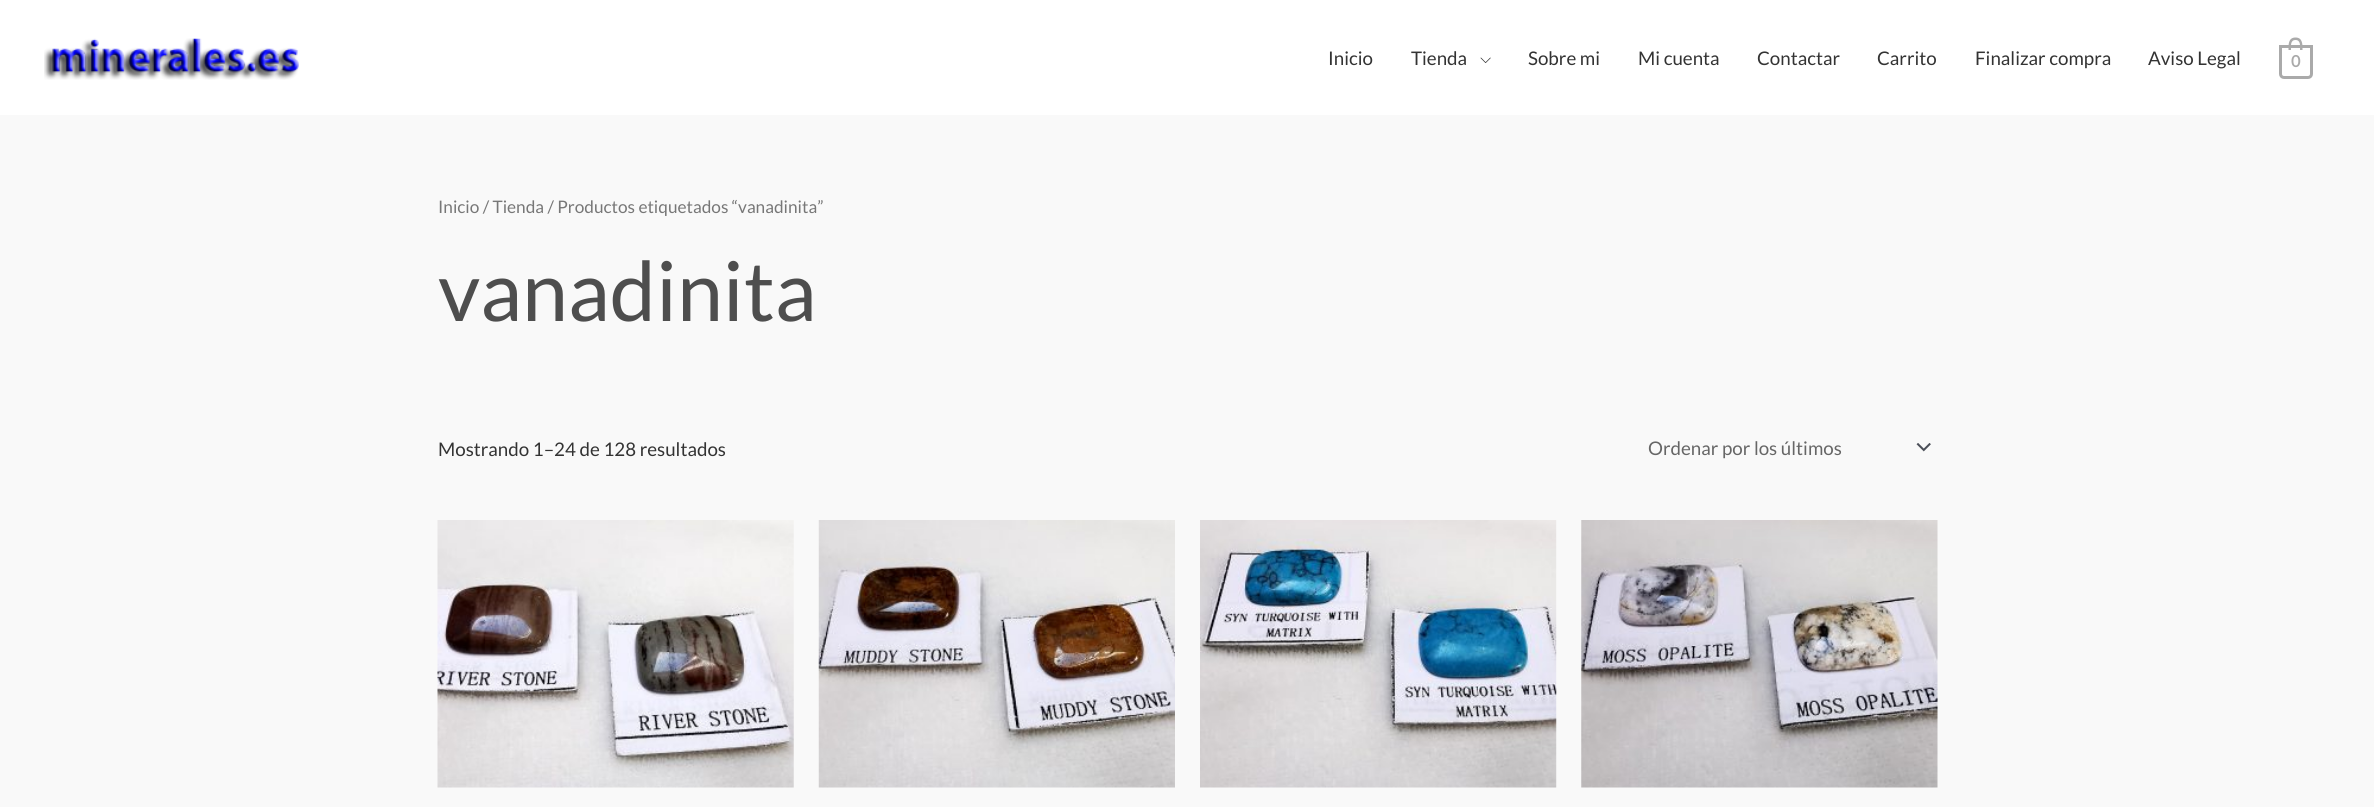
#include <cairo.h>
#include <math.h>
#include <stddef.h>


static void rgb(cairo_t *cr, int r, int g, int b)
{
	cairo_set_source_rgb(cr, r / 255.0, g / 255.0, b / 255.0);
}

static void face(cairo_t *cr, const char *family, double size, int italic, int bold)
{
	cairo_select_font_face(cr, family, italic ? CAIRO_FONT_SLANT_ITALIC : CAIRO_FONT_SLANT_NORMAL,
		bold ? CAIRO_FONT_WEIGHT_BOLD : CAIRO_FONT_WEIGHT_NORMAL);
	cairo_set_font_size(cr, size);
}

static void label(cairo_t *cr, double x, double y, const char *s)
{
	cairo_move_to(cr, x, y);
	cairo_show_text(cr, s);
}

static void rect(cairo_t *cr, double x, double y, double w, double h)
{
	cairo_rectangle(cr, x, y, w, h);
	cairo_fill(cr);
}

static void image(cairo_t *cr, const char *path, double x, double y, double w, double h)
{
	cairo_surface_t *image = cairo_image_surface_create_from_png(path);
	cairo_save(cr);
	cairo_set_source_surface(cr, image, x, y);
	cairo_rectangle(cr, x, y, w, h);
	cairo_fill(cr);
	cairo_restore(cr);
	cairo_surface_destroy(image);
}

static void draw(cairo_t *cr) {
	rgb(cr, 249, 249, 249);
	cairo_paint(cr);
	rgb(cr, 255, 255, 255);
	rect(cr, 0, 0, 2374, 115);
	image(cr, "image0.png", 44, 38, 255, 42);
	face(cr, "Lato", 18.75, 0, 0);
	rgb(cr, 51, 51, 51);
	label(cr, 1328, 65, "Inicio");
	label(cr, 1411, 65, "Tienda");
	image(cr, "image1.png", 1480, 57, 11, 6);
	label(cr, 1528, 65, "Sobre mi");
	label(cr, 1638, 65, "Mi cuenta");
	label(cr, 1757, 65, "Contactar");
	label(cr, 1877, 65, "Carrito");
	label(cr, 1975, 65, "Finalizar compra");
	label(cr, 2148, 65, "Aviso Legal");
	cairo_new_path(cr);
	cairo_move_to(cr, 2280.5, 46.5);
	cairo_line_to(cr, 2311.5, 46.5);
	cairo_line_to(cr, 2311.5, 74);
	cairo_curve_to(cr, 2311.5, 76, 2310, 77.5, 2308, 77.5);
	cairo_line_to(cr, 2284, 77.5);
	cairo_curve_to(cr, 2282, 77.5, 2280.5, 76, 2280.5, 74);
	cairo_close_path(cr);
	rgb(cr, 170, 170, 170);
	cairo_set_line_width(cr, 3);
	cairo_stroke(cr);
	cairo_set_fill_rule(cr, CAIRO_FILL_RULE_EVEN_ODD);
	cairo_new_path(cr);
	cairo_move_to(cr, 2295.5, 37.5);
	cairo_curve_to(cr, 2303, 37.5, 2302.5, 45, 2302.5, 50);
	cairo_line_to(cr, 2288.5, 50);
	cairo_curve_to(cr, 2288.5, 45, 2288, 37.5, 2295.5, 37.5);
	cairo_close_path(cr);
	cairo_move_to(cr, 2295.5, 40);
	cairo_curve_to(cr, 2301, 40, 2300, 46.5, 2300, 50);
	cairo_line_to(cr, 2291, 50);
	cairo_curve_to(cr, 2291, 46.5, 2290, 40, 2295.5, 40);
	cairo_close_path(cr);
	cairo_fill(cr);
	face(cr, "Lato", 16, 0, 1);
	label(cr, 2291, 67, "0");
	face(cr, "Lato", 17.25, 0, 0);
	rgb(cr, 119, 119, 119);
	label(cr, 438, 213, "Inicio / Tienda / Productos etiquetados “vanadinita”");
	face(cr, "Lato", 82.5, 0, 0);
	rgb(cr, 78, 78, 78);
	label(cr, 438, 321, "vanadinita");
	face(cr, "Lato", 18.75, 0, 0);
	rgb(cr, 51, 51, 51);
	label(cr, 438, 456, "Mostrando 1–24 de 128 resultados");
	image(cr, "image2.png", 1916, 443, 15, 9);
	rgb(cr, 102, 102, 102);
	label(cr, 1648, 455, "Ordenar por los últimos");
	image(cr, "image3.png", 437, 520, 357, 268);
	image(cr, "image4.png", 818, 520, 357, 268);
	image(cr, "image5.png", 1200, 520, 357, 268);
	image(cr, "image6.png", 1581, 520, 357, 268);
}

int main(void) {
	cairo_surface_t *surface = cairo_image_surface_create(CAIRO_FORMAT_RGB24, 2374, 807);
	cairo_t *cr = cairo_create(surface);
	cairo_font_options_t *options = cairo_font_options_create();
	cairo_font_options_set_hint_metrics(options, CAIRO_HINT_METRICS_OFF);
	cairo_font_options_set_hint_style(options, CAIRO_HINT_STYLE_NONE);
	cairo_set_font_options(cr, options);
	cairo_set_miter_limit(cr, 4);
	draw(cr);
	cairo_surface_write_to_png(surface, "render.png");
	cairo_font_options_destroy(options);
	cairo_destroy(cr);
	cairo_surface_destroy(surface);
	return 0;
}
